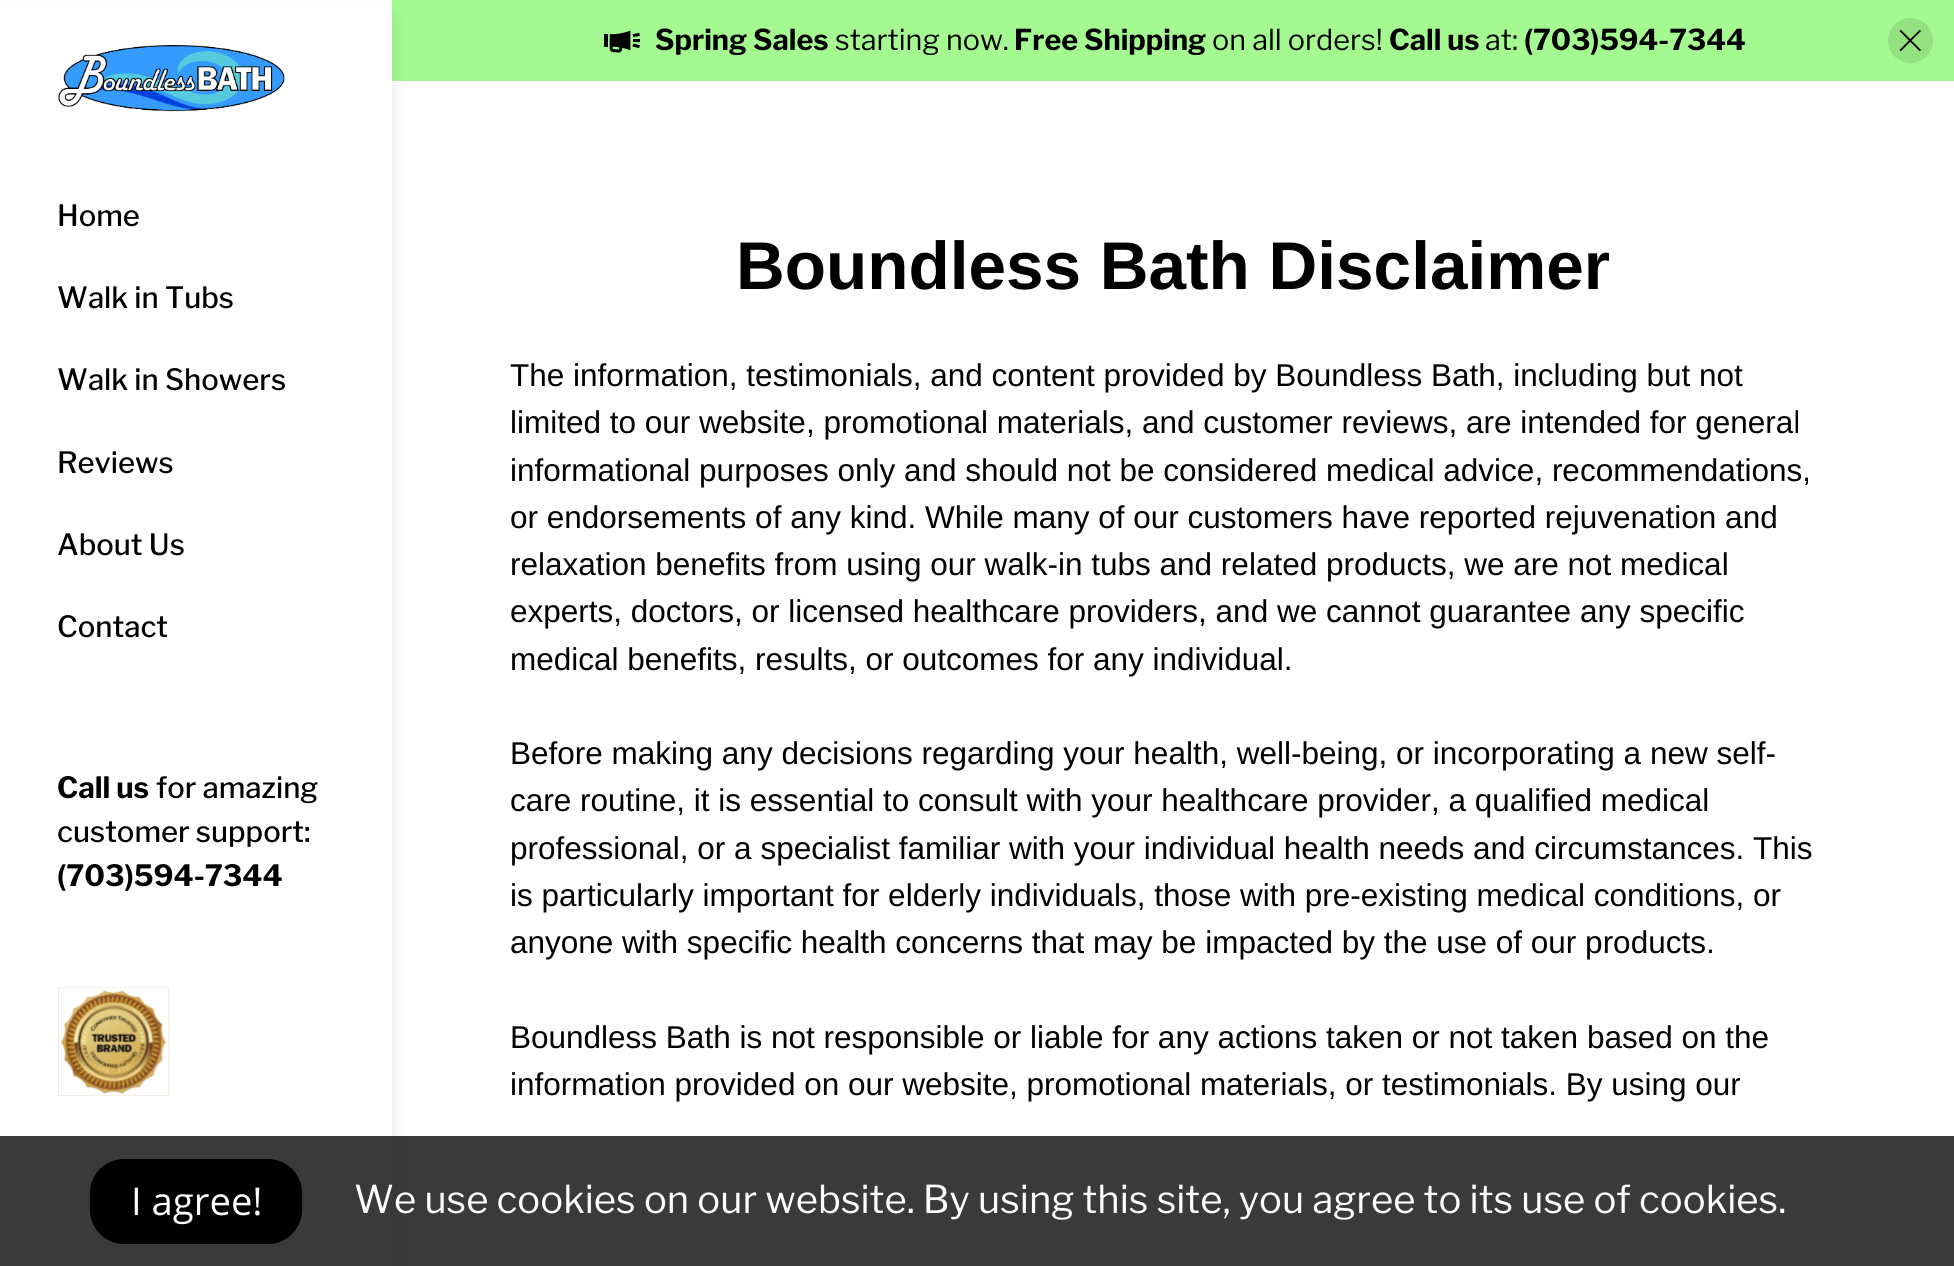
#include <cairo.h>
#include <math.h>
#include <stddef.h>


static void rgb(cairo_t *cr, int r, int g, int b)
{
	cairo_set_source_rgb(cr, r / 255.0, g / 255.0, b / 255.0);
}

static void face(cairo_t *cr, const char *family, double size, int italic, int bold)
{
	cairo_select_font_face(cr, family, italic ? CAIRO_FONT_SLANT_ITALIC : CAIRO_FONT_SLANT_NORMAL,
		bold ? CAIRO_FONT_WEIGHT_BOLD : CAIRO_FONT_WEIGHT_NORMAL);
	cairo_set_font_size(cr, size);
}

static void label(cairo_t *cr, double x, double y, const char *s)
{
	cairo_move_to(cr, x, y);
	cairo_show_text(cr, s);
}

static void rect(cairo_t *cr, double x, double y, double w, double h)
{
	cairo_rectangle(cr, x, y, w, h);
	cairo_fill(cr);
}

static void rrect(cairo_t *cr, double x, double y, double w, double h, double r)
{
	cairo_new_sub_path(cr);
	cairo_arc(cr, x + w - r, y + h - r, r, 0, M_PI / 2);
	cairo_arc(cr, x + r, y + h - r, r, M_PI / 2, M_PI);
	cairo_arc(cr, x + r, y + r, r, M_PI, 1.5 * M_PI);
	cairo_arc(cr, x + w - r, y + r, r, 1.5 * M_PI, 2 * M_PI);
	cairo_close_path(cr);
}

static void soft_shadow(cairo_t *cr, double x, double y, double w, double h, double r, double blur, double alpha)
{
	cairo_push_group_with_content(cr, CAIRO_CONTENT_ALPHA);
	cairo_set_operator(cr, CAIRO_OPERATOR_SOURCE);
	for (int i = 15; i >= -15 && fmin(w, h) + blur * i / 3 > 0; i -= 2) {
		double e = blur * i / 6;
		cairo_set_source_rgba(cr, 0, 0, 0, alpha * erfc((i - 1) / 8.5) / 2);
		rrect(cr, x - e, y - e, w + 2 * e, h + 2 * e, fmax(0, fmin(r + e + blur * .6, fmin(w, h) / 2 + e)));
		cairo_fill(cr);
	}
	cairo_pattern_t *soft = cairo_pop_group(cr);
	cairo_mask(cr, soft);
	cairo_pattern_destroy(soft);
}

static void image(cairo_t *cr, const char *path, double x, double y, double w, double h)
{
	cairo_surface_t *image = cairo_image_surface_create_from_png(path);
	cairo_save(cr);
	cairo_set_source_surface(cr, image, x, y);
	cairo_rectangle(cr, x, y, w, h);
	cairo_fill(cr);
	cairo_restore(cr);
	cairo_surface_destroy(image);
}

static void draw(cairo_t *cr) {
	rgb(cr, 255, 255, 255);
	cairo_paint(cr);
	rgb(cr, 164, 250, 144);
	rect(cr, 392, 0, 1562, 81);
	rgb(cr, 10, 10, 10);
	soft_shadow(cr, -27, 18, 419, 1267, 0, 9, 0.1);
	image(cr, "image0.png", 604, 30, 36, 23);
	face(cr, "Libre Franklin", 28.75, 0, 1);
	rgb(cr, 0, 0, 0);
	label(cr, 655, 50, "Spring Sales");
	face(cr, "Libre Franklin", 28.75, 0, 0);
	label(cr, 835, 50, "starting now.");
	face(cr, "Libre Franklin", 28.75, 0, 1);
	label(cr, 1014, 50, "Free Shipping");
	face(cr, "Libre Franklin", 28.75, 0, 0);
	label(cr, 1212, 50, "on all orders!");
	face(cr, "Libre Franklin", 28.75, 0, 1);
	label(cr, 1389, 50, "Call us");
	face(cr, "Libre Franklin", 28.75, 0, 0);
	label(cr, 1485, 50, "at:");
	face(cr, "Libre Franklin", 28.75, 0, 1);
	label(cr, 1524, 50, "(703)594-7344");
	rgb(cr, 148, 225, 130);
	cairo_new_path(cr);
	cairo_arc(cr, 1910.5, 40.5, 22.5, 0, 2 * M_PI);
	cairo_fill(cr);
	image(cr, "image1.png", 1899, 29, 22, 23);
	rgb(cr, 255, 255, 255);
	rect(cr, 0, 7, 392, 1259);
	image(cr, "image2.png", 58, 45, 227, 67);
	face(cr, "Libre Franklin Medium", 29.25, 0, 0);
	rgb(cr, 0, 0, 0);
	label(cr, 57, 226, "Home");
	label(cr, 57, 308, "Walk in Tubs");
	label(cr, 57, 390, "Walk in Showers");
	label(cr, 57, 473, "Reviews");
	label(cr, 57, 555, "About Us");
	label(cr, 57, 637, "Contact");
	face(cr, "Libre Franklin", 29.25, 0, 1);
	label(cr, 57, 798, "Call us");
	face(cr, "Libre Franklin Medium", 29.25, 0, 0);
	label(cr, 156, 798, "for amazing");
	label(cr, 57, 842, "customer support:");
	face(cr, "Libre Franklin", 29.25, 0, 1);
	label(cr, 57, 886, "(703)594-7344");
	image(cr, "image3.png", 58, 987, 112, 109);
	image(cr, "image4.png", 58, 987, 111, 109);
	face(cr, "Liberation Sans", 67.5, 0, 1);
	label(cr, 736, 289, "Boundless Bath Disclaimer");
	face(cr, "Liberation Sans", 31.5, 0, 0);
	label(cr, 510, 386, "The information, testimonials, and content provided by Boundless Bath, including but not");
	label(cr, 510, 433, "limited to our website, promotional materials, and customer reviews, are intended for general");
	label(cr, 510, 481, "informational purposes only and should not be considered medical advice, recommendations,");
	label(cr, 510, 528, "or endorsements of any kind. While many of our customers have reported rejuvenation and");
	label(cr, 510, 575, "relaxation benefits from using our walk-in tubs and related products, we are not medical");
	label(cr, 510, 622, "experts, doctors, or licensed healthcare providers, and we cannot guarantee any specific");
	label(cr, 510, 670, "medical benefits, results, or outcomes for any individual.");
	label(cr, 510, 764, "Before making any decisions regarding your health, well-being, or incorporating a new self-");
	label(cr, 510, 811, "care routine, it is essential to consult with your healthcare provider, a qualified medical");
	label(cr, 510, 859, "professional, or a specialist familiar with your individual health needs and circumstances. This");
	label(cr, 510, 906, "is particularly important for elderly individuals, those with pre-existing medical conditions, or");
	label(cr, 510, 953, "anyone with specific health concerns that may be impacted by the use of our products.");
	label(cr, 510, 1048, "Boundless Bath is not responsible or liable for any actions taken or not taken based on the");
	label(cr, 510, 1095, "information provided on our website, promotional materials, or testimonials. By using our");
	cairo_set_source_rgba(cr, 0, 0, 0, 0.77);
	rect(cr, 0, 1136, 1954, 130);
	rgb(cr, 0, 0, 0);
	rrect(cr, 90, 1159, 212, 85, 34);
	cairo_fill(cr);
	face(cr, "Open Sans", 38.25, 0, 0);
	rgb(cr, 255, 255, 255);
	label(cr, 131, 1215, "I agree!");
	face(cr, "Libre Franklin", 38.25, 0, 0);
	label(cr, 354, 1213, "We use cookies on our website. By using this site, you agree to its use of cookies.");
}

int main(void) {
	cairo_surface_t *surface = cairo_image_surface_create(CAIRO_FORMAT_RGB24, 1954, 1266);
	cairo_t *cr = cairo_create(surface);
	cairo_font_options_t *options = cairo_font_options_create();
	cairo_font_options_set_hint_metrics(options, CAIRO_HINT_METRICS_OFF);
	cairo_font_options_set_hint_style(options, CAIRO_HINT_STYLE_NONE);
	cairo_set_font_options(cr, options);
	cairo_set_miter_limit(cr, 4);
	draw(cr);
	cairo_surface_write_to_png(surface, "render.png");
	cairo_font_options_destroy(options);
	cairo_destroy(cr);
	cairo_surface_destroy(surface);
	return 0;
}
